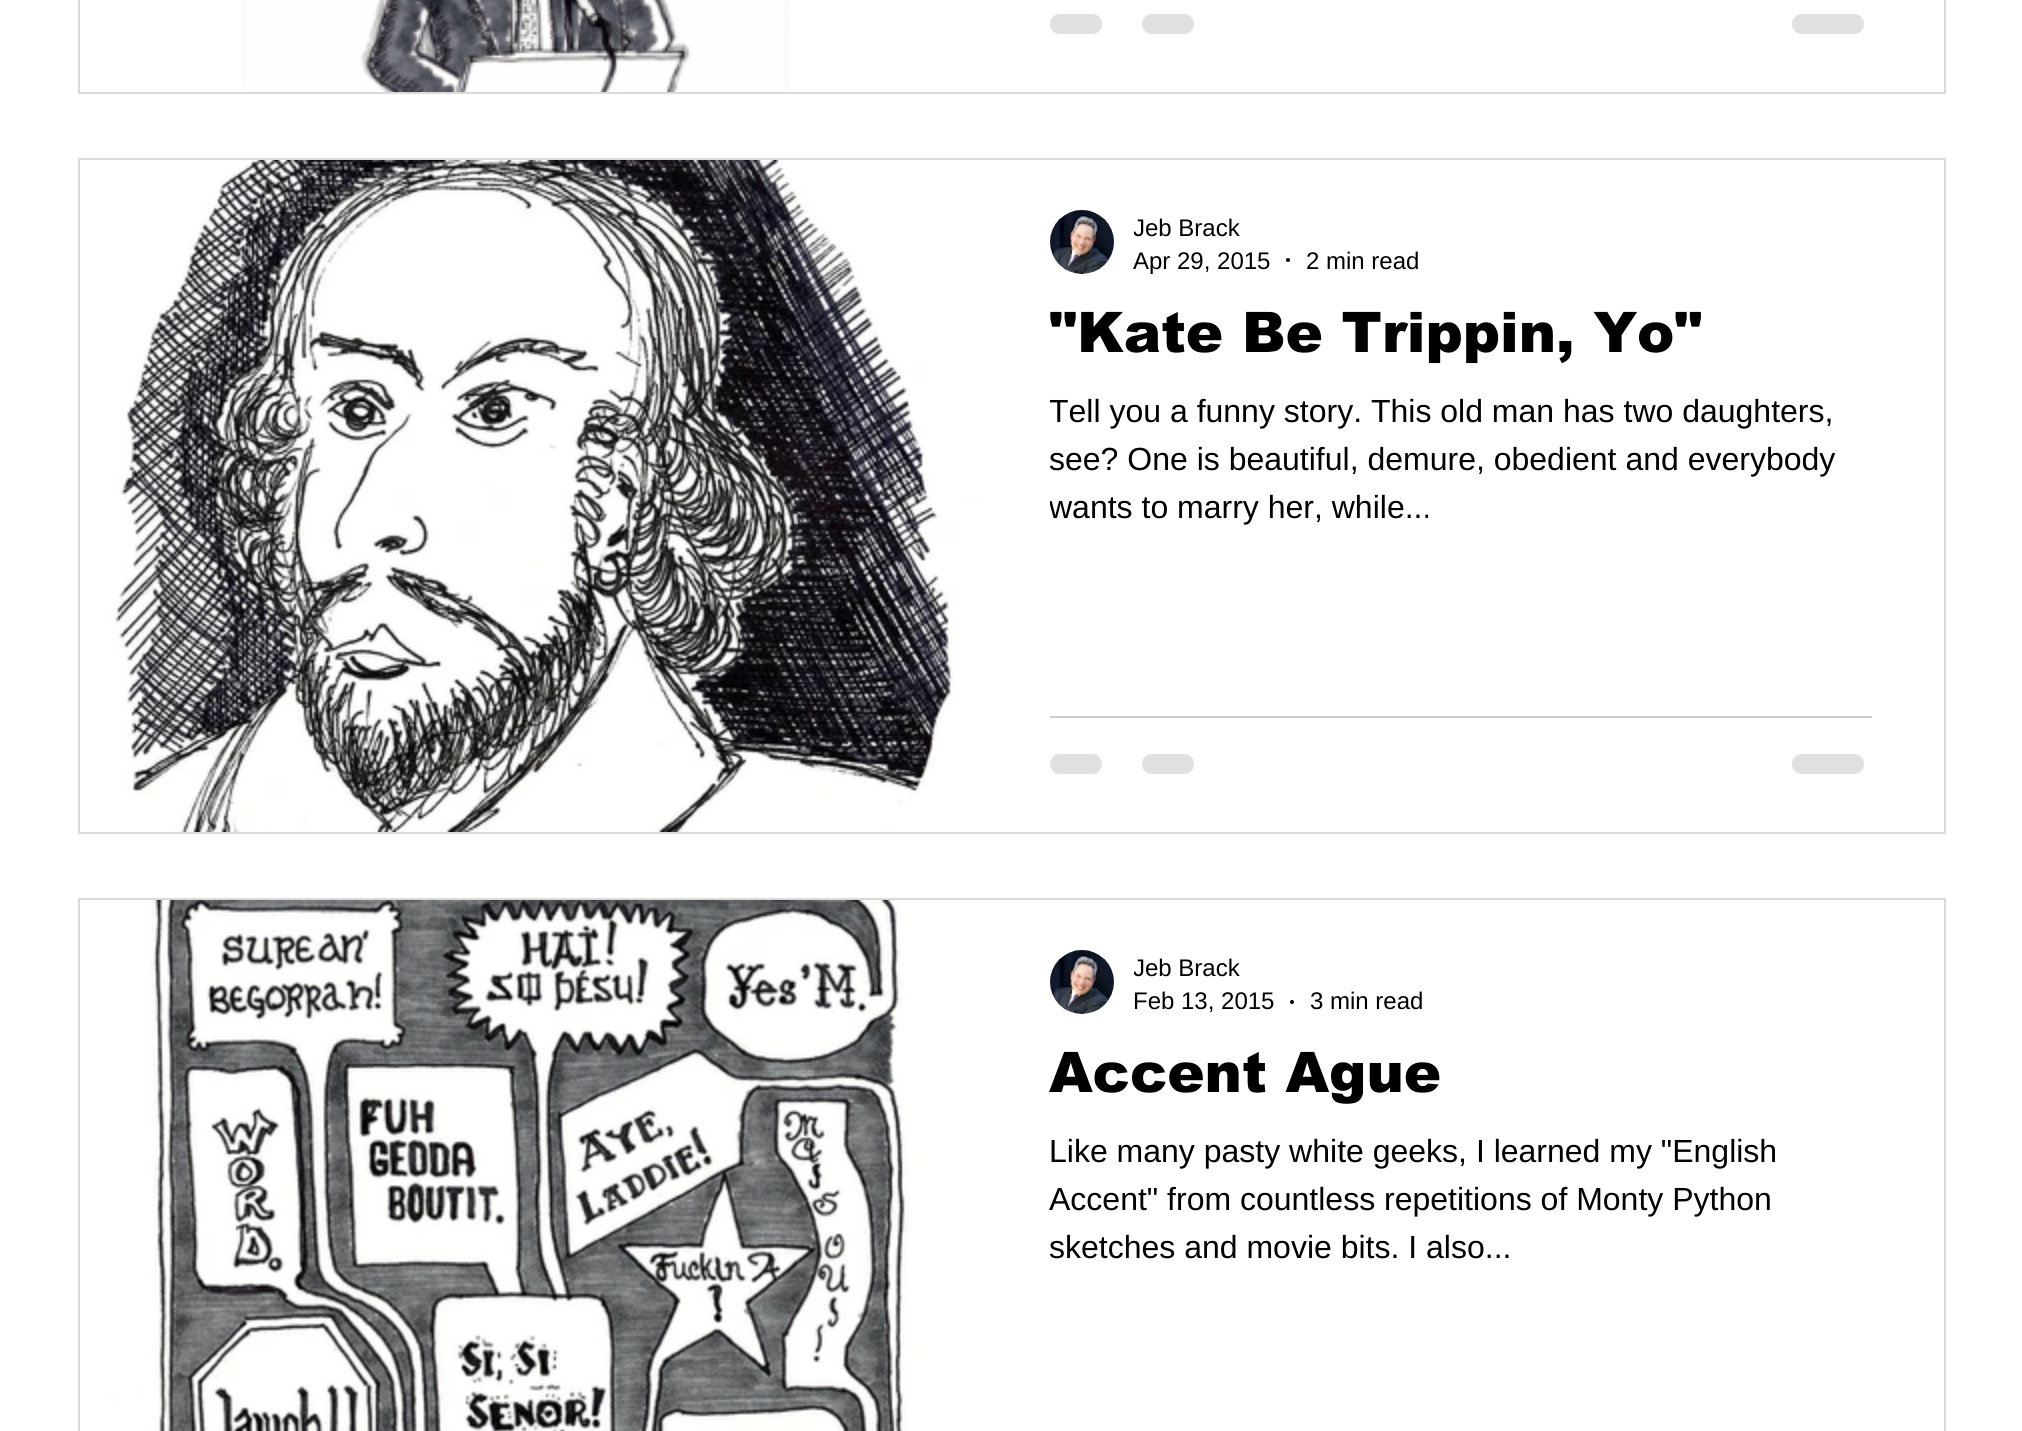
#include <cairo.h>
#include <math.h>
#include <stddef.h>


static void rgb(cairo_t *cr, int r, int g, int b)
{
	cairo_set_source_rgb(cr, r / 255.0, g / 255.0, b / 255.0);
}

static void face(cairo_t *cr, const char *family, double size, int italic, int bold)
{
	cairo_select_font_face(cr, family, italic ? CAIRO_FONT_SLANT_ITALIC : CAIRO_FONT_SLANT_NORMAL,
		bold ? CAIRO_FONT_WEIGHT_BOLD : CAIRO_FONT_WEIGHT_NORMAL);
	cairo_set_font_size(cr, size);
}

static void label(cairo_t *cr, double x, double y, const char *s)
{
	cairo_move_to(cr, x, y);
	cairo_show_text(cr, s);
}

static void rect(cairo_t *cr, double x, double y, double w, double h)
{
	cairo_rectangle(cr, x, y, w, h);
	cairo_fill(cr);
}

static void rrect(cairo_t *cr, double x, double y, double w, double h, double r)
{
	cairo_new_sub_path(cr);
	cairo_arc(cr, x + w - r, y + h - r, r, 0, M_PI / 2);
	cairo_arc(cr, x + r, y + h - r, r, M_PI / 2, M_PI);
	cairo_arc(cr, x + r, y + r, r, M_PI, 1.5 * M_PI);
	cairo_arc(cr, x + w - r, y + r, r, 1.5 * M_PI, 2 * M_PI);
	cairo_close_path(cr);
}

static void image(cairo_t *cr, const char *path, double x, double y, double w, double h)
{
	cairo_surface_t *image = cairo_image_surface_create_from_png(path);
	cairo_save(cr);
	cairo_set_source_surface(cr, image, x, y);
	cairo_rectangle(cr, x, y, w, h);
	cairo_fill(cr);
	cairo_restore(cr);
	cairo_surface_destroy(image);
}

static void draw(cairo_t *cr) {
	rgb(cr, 255, 255, 255);
	cairo_paint(cr);
	cairo_rectangle(cr, 79, -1, 1866, 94);
	rgb(cr, 217, 217, 217);
	cairo_stroke(cr);
	image(cr, "image0.png", 242, 0, 548, 92);
	image(cr, "image1.png", 246, 0, 538, 92);
	rgb(cr, 224, 224, 224);
	rrect(cr, 1050, 14, 52, 20, 10);
	cairo_fill(cr);
	rrect(cr, 1142, 14, 52, 20, 10);
	cairo_fill(cr);
	rrect(cr, 1792, 14, 72, 20, 10);
	cairo_fill(cr);
	cairo_rectangle(cr, 79, 159, 1866, 674);
	rgb(cr, 217, 217, 217);
	cairo_stroke(cr);
	image(cr, "image2.png", 80, 160, 898, 672);
	image(cr, "image3.png", 1050, 210, 64, 64);
	cairo_save(cr);
	cairo_rectangle(cr, 1134, 214, 106, 28);
	cairo_clip(cr);
	face(cr, "Liberation Sans", 24, 0, 0);
	rgb(cr, 0, 0, 0);
	label(cr, 1133, 236, "Jeb Brack");
	cairo_restore(cr);
	face(cr, "Liberation Sans", 24, 0, 0);
	rgb(cr, 0, 0, 0);
	label(cr, 1133, 269, "Apr 29, 2015");
	cairo_new_path(cr);
	cairo_arc(cr, 1288, 260, 2, 0, 2 * M_PI);
	cairo_fill(cr);
	label(cr, 1306, 269, "2 min read");
	face(cr, "arial Black", 56, 0, 0);
	label(cr, 1049, 352, "\"Kate Be Trippin, Yo\"");
	cairo_save(cr);
	cairo_rectangle(cr, 1050, 388, 822, 144);
	cairo_clip(cr);
	face(cr, "Liberation Sans", 32, 0, 0);
	label(cr, 1049, 422, "Tell you a funny story. This old man has two daughters,");
	cairo_restore(cr);
	face(cr, "Liberation Sans", 32, 0, 0);
	label(cr, 1049, 470, "see? One is beautiful, demure, obedient and everybody");
	cairo_save(cr);
	cairo_rectangle(cr, 1050, 388, 822, 144);
	cairo_clip(cr);
	label(cr, 1049, 518, "wants to marry her, while...");
	cairo_restore(cr);
	rgb(cr, 204, 204, 204);
	rect(cr, 1050, 716, 822, 2);
	rgb(cr, 224, 224, 224);
	rrect(cr, 1050, 754, 52, 20, 10);
	cairo_fill(cr);
	rrect(cr, 1142, 754, 52, 20, 10);
	cairo_fill(cr);
	rrect(cr, 1792, 754, 72, 20, 10);
	cairo_fill(cr);
	cairo_rectangle(cr, 79, 899, 1866, 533);
	rgb(cr, 217, 217, 217);
	cairo_stroke(cr);
	image(cr, "image4.png", 80, 900, 898, 531);
	image(cr, "image3.png", 1050, 950, 64, 64);
	cairo_save(cr);
	cairo_rectangle(cr, 1134, 954, 106, 28);
	cairo_clip(cr);
	face(cr, "Liberation Sans", 24, 0, 0);
	rgb(cr, 0, 0, 0);
	label(cr, 1133, 976, "Jeb Brack");
	cairo_restore(cr);
	face(cr, "Liberation Sans", 24, 0, 0);
	rgb(cr, 0, 0, 0);
	label(cr, 1133, 1009, "Feb 13, 2015");
	cairo_new_path(cr);
	cairo_arc(cr, 1292, 1002, 2, 0, 2 * M_PI);
	cairo_fill(cr);
	label(cr, 1310, 1009, "3 min read");
	face(cr, "arial Black", 56, 0, 0);
	label(cr, 1049, 1092, "Accent Ague");
	face(cr, "Liberation Sans", 32, 0, 0);
	label(cr, 1049, 1162, "Like many pasty white geeks, I learned my \"English");
	label(cr, 1049, 1210, "Accent\" from countless repetitions of Monty Python");
	label(cr, 1049, 1258, "sketches and movie bits. I also...");
}

int main(void) {
	cairo_surface_t *surface = cairo_image_surface_create(CAIRO_FORMAT_RGB24, 2022, 1431);
	cairo_t *cr = cairo_create(surface);
	cairo_font_options_t *options = cairo_font_options_create();
	cairo_font_options_set_hint_metrics(options, CAIRO_HINT_METRICS_OFF);
	cairo_font_options_set_hint_style(options, CAIRO_HINT_STYLE_NONE);
	cairo_set_font_options(cr, options);
	cairo_set_miter_limit(cr, 4);
	draw(cr);
	cairo_surface_write_to_png(surface, "render.png");
	cairo_font_options_destroy(options);
	cairo_destroy(cr);
	cairo_surface_destroy(surface);
	return 0;
}
